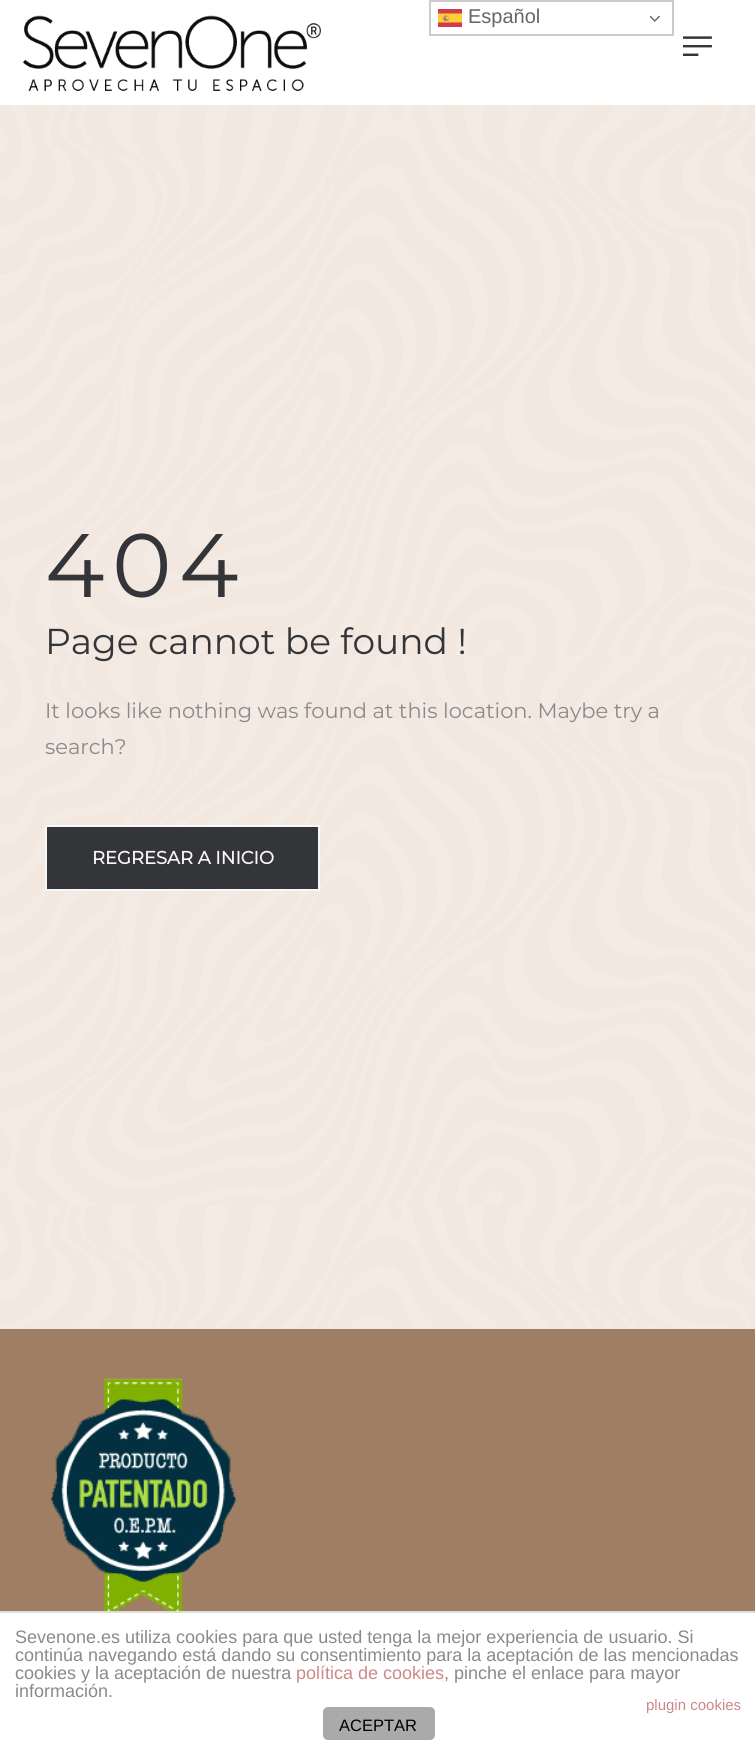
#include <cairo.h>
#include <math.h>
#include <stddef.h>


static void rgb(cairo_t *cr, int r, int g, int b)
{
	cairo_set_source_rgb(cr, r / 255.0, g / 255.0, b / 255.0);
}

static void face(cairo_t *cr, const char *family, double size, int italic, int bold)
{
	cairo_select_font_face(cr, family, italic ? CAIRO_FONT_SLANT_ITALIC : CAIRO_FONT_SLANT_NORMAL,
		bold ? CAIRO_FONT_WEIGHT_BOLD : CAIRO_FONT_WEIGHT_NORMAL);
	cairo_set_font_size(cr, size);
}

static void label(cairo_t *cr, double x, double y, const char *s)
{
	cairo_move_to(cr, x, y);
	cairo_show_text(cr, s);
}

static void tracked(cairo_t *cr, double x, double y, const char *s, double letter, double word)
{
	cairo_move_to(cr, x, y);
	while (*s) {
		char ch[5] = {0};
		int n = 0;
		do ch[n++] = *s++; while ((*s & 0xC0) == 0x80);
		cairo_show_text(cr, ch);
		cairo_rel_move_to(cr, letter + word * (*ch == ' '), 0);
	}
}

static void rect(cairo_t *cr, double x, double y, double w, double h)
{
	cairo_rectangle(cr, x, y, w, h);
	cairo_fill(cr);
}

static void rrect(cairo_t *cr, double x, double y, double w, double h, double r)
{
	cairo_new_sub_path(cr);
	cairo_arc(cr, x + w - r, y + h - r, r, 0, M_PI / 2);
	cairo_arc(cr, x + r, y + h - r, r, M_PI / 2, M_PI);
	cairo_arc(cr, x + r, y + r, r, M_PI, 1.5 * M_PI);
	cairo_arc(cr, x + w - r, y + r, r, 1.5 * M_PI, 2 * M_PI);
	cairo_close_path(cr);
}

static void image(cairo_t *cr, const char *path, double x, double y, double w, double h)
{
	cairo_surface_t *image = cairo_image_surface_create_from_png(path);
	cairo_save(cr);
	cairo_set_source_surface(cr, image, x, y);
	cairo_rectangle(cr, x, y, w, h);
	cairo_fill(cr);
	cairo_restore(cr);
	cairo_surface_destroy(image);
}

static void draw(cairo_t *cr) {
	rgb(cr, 255, 255, 255);
	cairo_paint(cr);
	cairo_rectangle(cr, 430, 1, 243, 34);
	rgb(cr, 204, 204, 204);
	cairo_stroke(cr);
	image(cr, "image0.png", 438, 9, 24, 18);
	face(cr, "Liberation Sans", 20, 0, 0);
	rgb(cr, 102, 102, 102);
	label(cr, 468, 23, "Español");
	image(cr, "image1.png", 650, 15, 10, 7);
	image(cr, "image2.png", 22, 15, 299, 77);
	image(cr, "image3.png", 683, 36, 29, 20);
	image(cr, "image4.png", 0, 105, 755, 1224);
	face(cr, "Montserrat", 90, 0, 0);
	rgb(cr, 52, 53, 56);
	tracked(cr, 45, 597, "404", 7.5, 0);
	face(cr, "Montserrat", 36, 0, 0);
	label(cr, 45, 654, "Page cannot be found !");
	face(cr, "Montserrat", 21, 0, 0);
	rgb(cr, 138, 138, 138);
	label(cr, 45, 718, "It looks like nothing was found at this location. Maybe try a");
	label(cr, 45, 754, "search?");
	rgb(cr, 52, 53, 56);
	cairo_rectangle(cr, 46, 826, 273, 64);
	cairo_fill_preserve(cr);
	rgb(cr, 247, 247, 247);
	cairo_stroke(cr);
	face(cr, "Montserrat", 18, 0, 1);
	label(cr, 92, 864, "REGRESAR A INICIO");
	rgb(cr, 160, 126, 99);
	rect(cr, 0, 1329, 755, 282);
	image(cr, "image5.png", 50, 1378, 186, 233);
	rgb(cr, 221, 221, 221);
	rect(cr, 0, 1611, 755, 2);
	face(cr, "Liberation Sans", 18, 0, 0);
	rgb(cr, 138, 138, 138);
	label(cr, 15, 1643, "Sevenone.es utiliza cookies para que usted tenga la mejor experiencia de usuario. Si");
	label(cr, 15, 1661, "continúa navegando está dando su consentimiento para la aceptación de las mencionadas");
	label(cr, 15, 1679, "cookies y la aceptación de nuestra");
	rgb(cr, 204, 136, 136);
	label(cr, 296, 1679, "política de cookies");
	rgb(cr, 138, 138, 138);
	label(cr, 444, 1679, ", pinche el enlace para mayor");
	label(cr, 15, 1697, "información.");
	face(cr, "Liberation Sans", 15, 0, 0);
	rgb(cr, 204, 136, 136);
	label(cr, 646, 1710, "plugin cookies");
	rgb(cr, 170, 170, 170);
	rrect(cr, 323, 1707, 112, 33, 5);
	cairo_fill(cr);
	face(cr, "Liberation Sans", 16.5, 0, 0);
	rgb(cr, 0, 0, 0);
	label(cr, 339, 1731, "ACEPTAR");
}

int main(void) {
	cairo_surface_t *surface = cairo_image_surface_create(CAIRO_FORMAT_RGB24, 755, 1748);
	cairo_t *cr = cairo_create(surface);
	cairo_font_options_t *options = cairo_font_options_create();
	cairo_font_options_set_hint_metrics(options, CAIRO_HINT_METRICS_OFF);
	cairo_font_options_set_hint_style(options, CAIRO_HINT_STYLE_NONE);
	cairo_set_font_options(cr, options);
	cairo_set_miter_limit(cr, 4);
	draw(cr);
	cairo_surface_write_to_png(surface, "render.png");
	cairo_font_options_destroy(options);
	cairo_destroy(cr);
	cairo_surface_destroy(surface);
	return 0;
}
